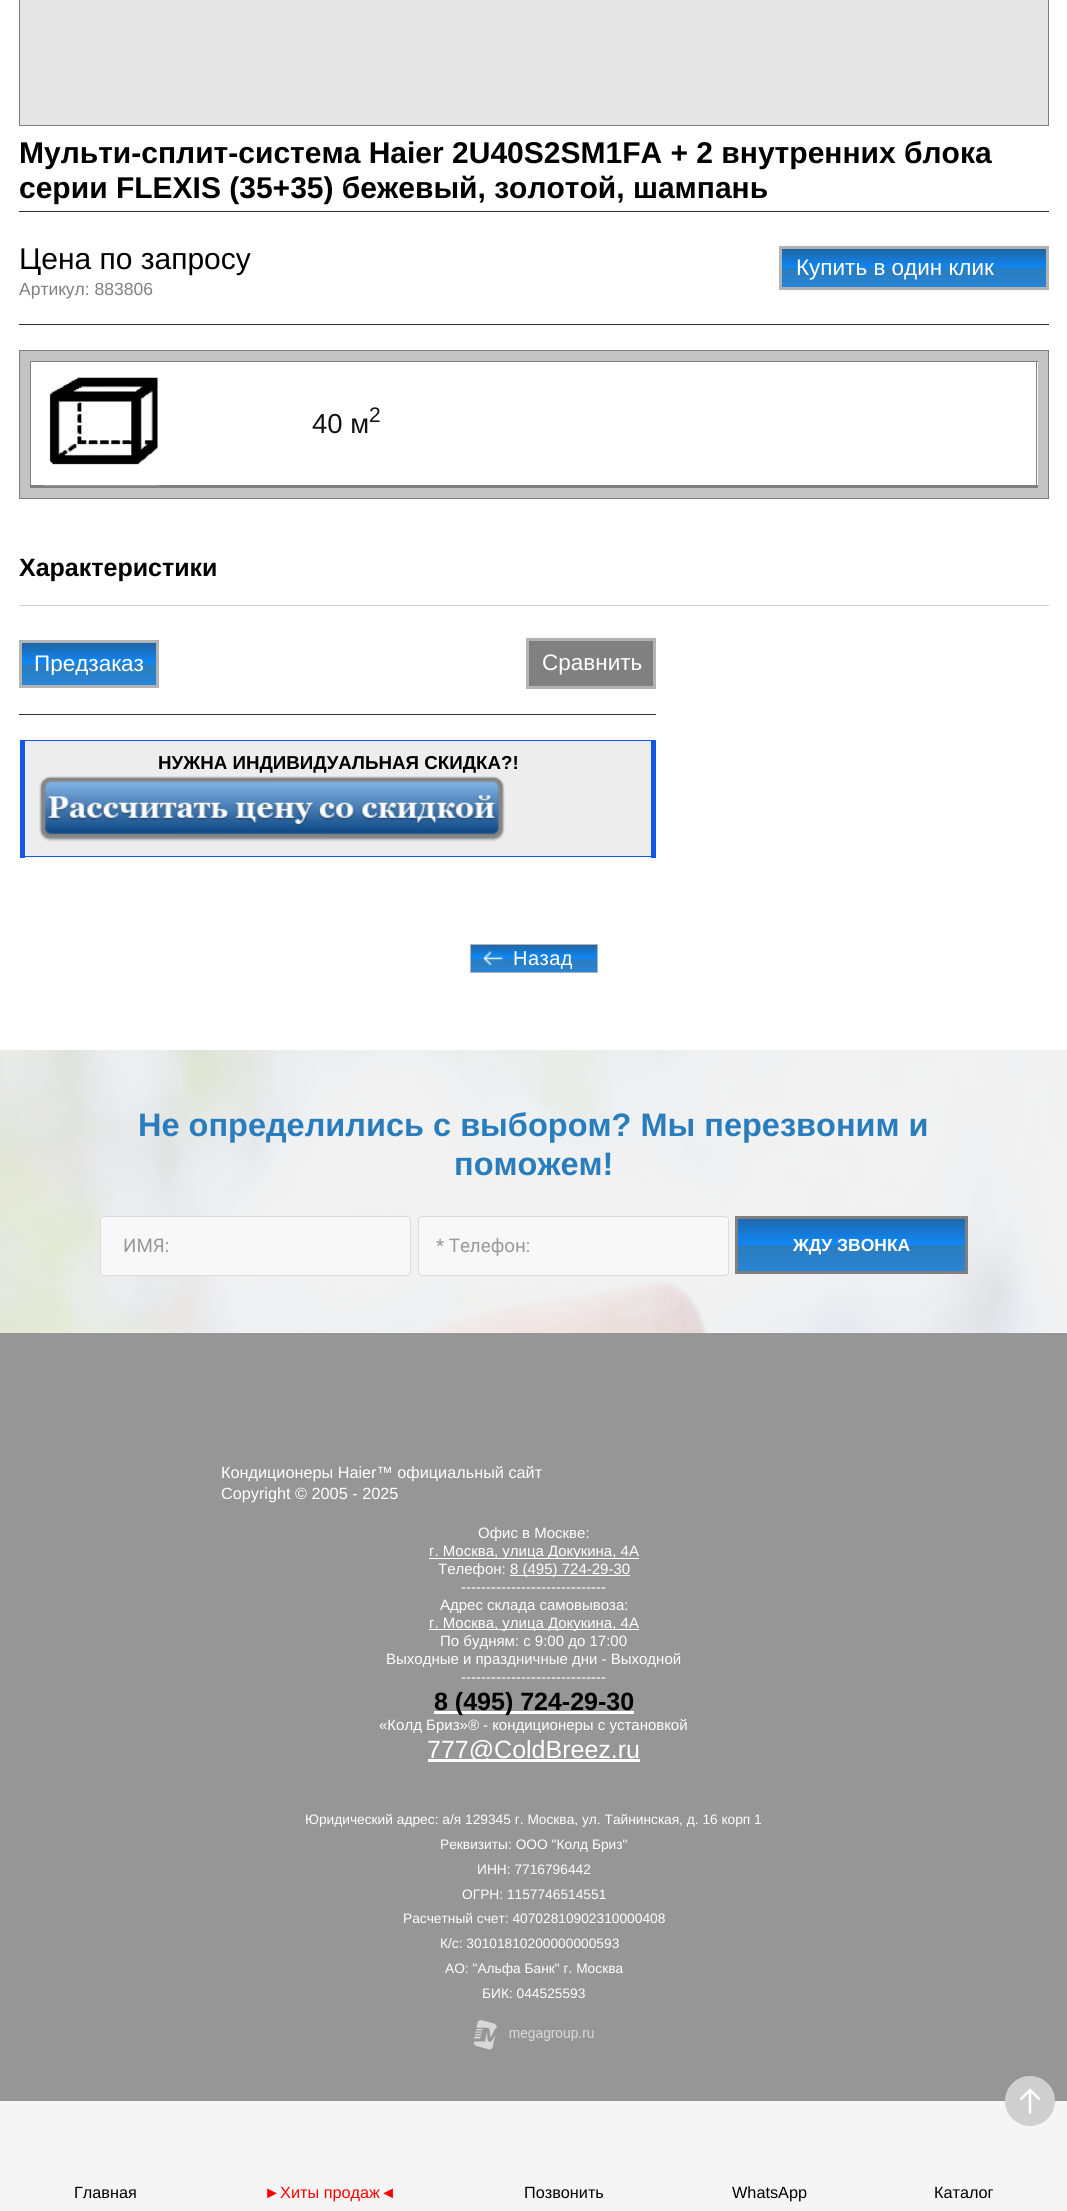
#include <cairo.h>
#include <math.h>
#include <stddef.h>


static void rgb(cairo_t *cr, int r, int g, int b)
{
	cairo_set_source_rgb(cr, r / 255.0, g / 255.0, b / 255.0);
}

static void face(cairo_t *cr, const char *family, double size, int italic, int bold)
{
	cairo_select_font_face(cr, family, italic ? CAIRO_FONT_SLANT_ITALIC : CAIRO_FONT_SLANT_NORMAL,
		bold ? CAIRO_FONT_WEIGHT_BOLD : CAIRO_FONT_WEIGHT_NORMAL);
	cairo_set_font_size(cr, size);
}

static void label(cairo_t *cr, double x, double y, const char *s)
{
	cairo_move_to(cr, x, y);
	cairo_show_text(cr, s);
}

static void tracked(cairo_t *cr, double x, double y, const char *s, double letter, double word)
{
	cairo_move_to(cr, x, y);
	while (*s) {
		char ch[5] = {0};
		int n = 0;
		do ch[n++] = *s++; while ((*s & 0xC0) == 0x80);
		cairo_show_text(cr, ch);
		cairo_rel_move_to(cr, letter + word * (*ch == ' '), 0);
	}
}

static void rect(cairo_t *cr, double x, double y, double w, double h)
{
	cairo_rectangle(cr, x, y, w, h);
	cairo_fill(cr);
}

static void rrect(cairo_t *cr, double x, double y, double w, double h, double r)
{
	cairo_new_sub_path(cr);
	cairo_arc(cr, x + w - r, y + h - r, r, 0, M_PI / 2);
	cairo_arc(cr, x + r, y + h - r, r, M_PI / 2, M_PI);
	cairo_arc(cr, x + r, y + r, r, M_PI, 1.5 * M_PI);
	cairo_arc(cr, x + w - r, y + r, r, 1.5 * M_PI, 2 * M_PI);
	cairo_close_path(cr);
}

static void image(cairo_t *cr, const char *path, double x, double y, double w, double h)
{
	cairo_surface_t *image = cairo_image_surface_create_from_png(path);
	cairo_save(cr);
	cairo_set_source_surface(cr, image, x, y);
	cairo_rectangle(cr, x, y, w, h);
	cairo_fill(cr);
	cairo_restore(cr);
	cairo_surface_destroy(image);
}

static void draw(cairo_t *cr) {
	cairo_pattern_t *gradient;
	rgb(cr, 255, 255, 255);
	cairo_paint(cr);
	rgb(cr, 230, 230, 230);
	cairo_rectangle(cr, 19.5, -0.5, 1029, 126);
	cairo_fill_preserve(cr);
	rgb(cr, 127, 127, 127);
	cairo_set_line_width(cr, 1);
	cairo_stroke(cr);
	rgb(cr, 47, 47, 47);
	rect(cr, 19, 211, 1030, 1);
	face(cr, "Liberation Sans", 30, 0, 1);
	rgb(cr, 0, 0, 0);
	label(cr, 19, 163, "Мульти-сплит-система Haier 2U40S2SM1FA + 2 внутренних блока");
	label(cr, 19, 198, "серии FLEXIS (35+35) бежевый, золотой, шампань");
	rgb(cr, 47, 47, 47);
	rect(cr, 19, 324, 1030, 1);
	face(cr, "Liberation Sans", 30, 0, 0);
	rgb(cr, 0, 0, 0);
	label(cr, 19, 269, "Цена по запросу");
	face(cr, "Liberation Sans", 17.5, 0, 0);
	rgb(cr, 128, 128, 128);
	label(cr, 19, 295, "Артикул: 883806");
	gradient = cairo_pattern_create_linear(914, 249, 914, 288);
	cairo_pattern_add_color_stop_rgba(gradient, 0, 0.125, 0.392, 0.635, 1);
	cairo_pattern_add_color_stop_rgba(gradient, 0.5, 0.055, 0.537, 0.98, 1);
	cairo_pattern_add_color_stop_rgba(gradient, 0.5, 0.165, 0.49, 0.741, 1);
	cairo_pattern_add_color_stop_rgba(gradient, 1, 0.165, 0.522, 0.847, 1);
	cairo_set_source(cr, gradient);
	cairo_pattern_destroy(gradient);
	rect(cr, 782, 249, 264, 38);
	cairo_rectangle(cr, 780.5, 247.5, 267, 41);
	rgb(cr, 179, 179, 179);
	cairo_set_line_width(cr, 3);
	cairo_stroke(cr);
	face(cr, "Liberation Sans", 22.5, 0, 0);
	rgb(cr, 255, 255, 255);
	label(cr, 796, 275, "Купить в один клик");
	rgb(cr, 195, 195, 195);
	cairo_rectangle(cr, 19.5, 350.5, 1029, 148);
	cairo_fill_preserve(cr);
	rgb(cr, 127, 127, 127);
	cairo_set_line_width(cr, 1);
	cairo_stroke(cr);
	rgb(cr, 255, 255, 255);
	rect(cr, 31, 362, 1007, 123);
	rgb(cr, 127, 127, 127);
	rect(cr, 30, 361, 1008, 1);
	rect(cr, 1036, 361, 1, 125);
	rect(cr, 30, 361, 1, 125);
	rect(cr, 30, 485, 1008, 3);
	image(cr, "image0.png", 43, 377, 116, 109);
	face(cr, "Liberation Sans", 27.5, 0, 0);
	rgb(cr, 19, 19, 19);
	label(cr, 312, 433, "40 м");
	face(cr, "Liberation Sans", 21, 0, 0);
	label(cr, 369, 422, "2");
	rgb(cr, 204, 204, 204);
	rect(cr, 19, 605, 1030, 1);
	face(cr, "Liberation Sans", 25, 0, 1);
	rgb(cr, 0, 0, 0);
	label(cr, 19, 576, "Характеристики");
	rgb(cr, 47, 47, 47);
	rect(cr, 19, 714, 637, 1);
	gradient = cairo_pattern_create_linear(89, 643, 89, 685);
	cairo_pattern_add_color_stop_rgba(gradient, 0, 0.125, 0.392, 0.635, 1);
	cairo_pattern_add_color_stop_rgba(gradient, 0.5, 0.055, 0.537, 0.98, 1);
	cairo_pattern_add_color_stop_rgba(gradient, 0.5, 0.165, 0.49, 0.741, 1);
	cairo_pattern_add_color_stop_rgba(gradient, 1, 0.165, 0.522, 0.847, 1);
	cairo_set_source(cr, gradient);
	cairo_pattern_destroy(gradient);
	rect(cr, 22, 643, 134, 42);
	cairo_rectangle(cr, 20.5, 641.5, 137, 45);
	rgb(cr, 179, 179, 179);
	cairo_set_line_width(cr, 3);
	cairo_stroke(cr);
	cairo_save(cr);
	cairo_rectangle(cr, 34, 653, 110, 22);
	cairo_clip(cr);
	face(cr, "Liberation Sans", 22.5, 0, 0);
	rgb(cr, 255, 255, 255);
	label(cr, 34, 671, "Предзаказ");
	cairo_restore(cr);
	rgb(cr, 128, 128, 128);
	cairo_rectangle(cr, 527.5, 639.5, 127, 48);
	cairo_fill_preserve(cr);
	rgb(cr, 179, 179, 179);
	cairo_stroke(cr);
	face(cr, "Liberation Sans", 22.5, 0, 0);
	rgb(cr, 255, 255, 255);
	label(cr, 542, 670, "Сравнить");
	rgb(cr, 237, 237, 237);
	rect(cr, 25, 741, 626, 115);
	rgb(cr, 19, 86, 232);
	rect(cr, 20, 740, 636, 1);
	rect(cr, 651, 740, 5, 118);
	rect(cr, 20, 856, 636, 1);
	rect(cr, 20, 740, 5, 118);
	face(cr, "Liberation Sans", 18.75, 0, 1);
	rgb(cr, 0, 0, 0);
	label(cr, 158, 769, "НУЖНА ИНДИВИДУАЛЬНАЯ СКИДКА?!");
	image(cr, "image1.png", 39, 776, 466, 66);
	gradient = cairo_pattern_create_linear(534, 944, 534, 973);
	cairo_pattern_add_color_stop_rgba(gradient, 0, 0.125, 0.392, 0.635, 1);
	cairo_pattern_add_color_stop_rgba(gradient, 0.5, 0.055, 0.537, 0.98, 1);
	cairo_pattern_add_color_stop_rgba(gradient, 0.5, 0.165, 0.49, 0.741, 1);
	cairo_pattern_add_color_stop_rgba(gradient, 1, 0.165, 0.522, 0.847, 1);
	cairo_set_source(cr, gradient);
	cairo_pattern_destroy(gradient);
	rect(cr, 471, 945, 126, 27);
	cairo_rectangle(cr, 470.5, 944.5, 127, 28);
	rgb(cr, 179, 179, 179);
	cairo_set_line_width(cr, 1);
	cairo_stroke(cr);
	image(cr, "image2.png", 483, 951, 20, 15);
	face(cr, "Liberation Sans", 20, 0, 0);
	rgb(cr, 255, 255, 255);
	tracked(cr, 513, 965, "Назад", 0.5, 0);
	image(cr, "image3.png", 0, 1050, 1067, 283);
	face(cr, "Liberation Sans", 32.5, 0, 1);
	rgb(cr, 42, 125, 189);
	label(cr, 138, 1136, "Не определились с выбором? Мы перезвоним и");
	label(cr, 454, 1175, "поможем!");
	rgb(cr, 248, 248, 248);
	rrect(cr, 100, 1216, 311, 60, 4);
	cairo_fill(cr);
	rrect(cr, 100.5, 1216.5, 310, 59, 3.5);
	cairo_set_source_rgba(cr, 0.22, 0.22, 0.22, 0.15);
	cairo_stroke(cr);
	face(cr, "Roboto", 18.75, 0, 0);
	rgb(cr, 153, 153, 153);
	label(cr, 123, 1252, "ИМЯ:");
	rgb(cr, 248, 248, 248);
	rrect(cr, 418.5, 1216.5, 310, 59, 3.5);
	cairo_fill_preserve(cr);
	rgb(cr, 219, 219, 219);
	cairo_stroke(cr);
	rgb(cr, 153, 153, 153);
	label(cr, 436, 1252, "* Телефон:");
	gradient = cairo_pattern_create_linear(851, 1216, 851, 1274);
	cairo_pattern_add_color_stop_rgba(gradient, 0, 0.125, 0.392, 0.635, 1);
	cairo_pattern_add_color_stop_rgba(gradient, 0.5, 0.055, 0.537, 0.98, 1);
	cairo_pattern_add_color_stop_rgba(gradient, 0.5, 0.165, 0.49, 0.741, 1);
	cairo_pattern_add_color_stop_rgba(gradient, 1, 0.165, 0.522, 0.847, 1);
	cairo_set_source(cr, gradient);
	cairo_pattern_destroy(gradient);
	rect(cr, 738, 1219, 227, 52);
	cairo_rectangle(cr, 736.5, 1217.5, 230, 55);
	rgb(cr, 127, 127, 127);
	cairo_set_line_width(cr, 3);
	cairo_stroke(cr);
	face(cr, "Liberation Sans", 17.5, 0, 1);
	rgb(cr, 255, 255, 255);
	label(cr, 793, 1251, "ЖДУ ЗВОНКА");
	rgb(cr, 150, 150, 150);
	rect(cr, 0, 1333, 1067, 768);
	face(cr, "Liberation Sans", 16.25, 0, 0);
	rgb(cr, 255, 255, 255);
	label(cr, 221, 1478, "Кондиционеры Haier™ официальный сайт");
	label(cr, 221, 1499, "Copyright © 2005 - 2025");
	face(cr, "Liberation Sans", 15, 0, 0);
	label(cr, 478, 1538, "Офис в Москве:");
	rect(cr, 429, 1558, 210, 1);
	label(cr, 429, 1556, "г. Москва, улица Докукина, 4А");
	label(cr, 438, 1574, "Телефон:");
	rect(cr, 510, 1575, 120, 1);
	label(cr, 510, 1574, "8 (495) 724-29-30");
	label(cr, 461, 1592, "-----------------------------");
	label(cr, 440, 1610, "Адрес склада самовывоза:");
	rect(cr, 429, 1629, 210, 1);
	label(cr, 429, 1628, "г. Москва, улица Докукина, 4А");
	label(cr, 440, 1646, "По будням: с 9:00 до 17:00");
	label(cr, 386, 1664, "Выходные и праздничные дни - Выходной");
	label(cr, 461, 1682, "-----------------------------");
	rect(cr, 434, 1711, 200, 3);
	face(cr, "Liberation Sans", 25, 0, 1);
	rgb(cr, 0, 0, 0);
	label(cr, 434, 1710, "8 (495) 724-29-30");
	face(cr, "Liberation Sans", 15, 0, 0);
	rgb(cr, 255, 255, 255);
	label(cr, 379, 1730, "«Колд Бриз»® - кондиционеры с установкой");
	rect(cr, 428, 1759, 212, 3);
	face(cr, "Liberation Sans", 25, 0, 0);
	label(cr, 427, 1758, "777@ColdBreez.ru");
	face(cr, "Liberation Sans", 13.75, 0, 0);
	label(cr, 305, 1824, "Юридический адрес: а/я 129345 г. Москва, ул. Тайнинская, д. 16 корп 1");
	label(cr, 440, 1849, "Реквизиты: ООО \"Колд Бриз\"");
	label(cr, 477, 1874, "ИНН: 7716796442");
	label(cr, 462, 1899, "ОГРН: 1157746514551");
	label(cr, 403, 1923, "Расчетный счет: 40702810902310000408");
	label(cr, 440, 1948, "К/с: 30101810200000000593");
	label(cr, 445, 1973, "АО: \"Альфа Банк\" г. Москва");
	label(cr, 482, 1998, "БИК: 044525593");
	image(cr, "image4.png", 474, 2020, 120, 30);
	rgb(cr, 245, 245, 245);
	rect(cr, 0, 2101, 1067, 110);
	rgb(cr, 207, 207, 207);
	cairo_arc(cr, 1030, 2101, 25, 0, 2 * M_PI);
	cairo_fill(cr);
	image(cr, "image5.png", 1020, 2088, 20, 26);
	face(cr, "Liberation Sans", 16.25, 0, 0);
	rgb(cr, 0, 0, 0);
	label(cr, 74, 2198, "Главная");
	rgb(cr, 255, 0, 0);
	label(cr, 264, 2198, "►Хиты продаж◄");
	rgb(cr, 0, 0, 0);
	label(cr, 524, 2198, "Позвонить");
	label(cr, 732, 2198, "WhatsApp");
	label(cr, 934, 2198, "Каталог");
}

int main(void) {
	cairo_surface_t *surface = cairo_image_surface_create(CAIRO_FORMAT_RGB24, 1067, 2211);
	cairo_t *cr = cairo_create(surface);
	cairo_font_options_t *options = cairo_font_options_create();
	cairo_font_options_set_hint_metrics(options, CAIRO_HINT_METRICS_OFF);
	cairo_font_options_set_hint_style(options, CAIRO_HINT_STYLE_NONE);
	cairo_set_font_options(cr, options);
	cairo_set_miter_limit(cr, 4);
	draw(cr);
	cairo_surface_write_to_png(surface, "render.png");
	cairo_font_options_destroy(options);
	cairo_destroy(cr);
	cairo_surface_destroy(surface);
	return 0;
}
